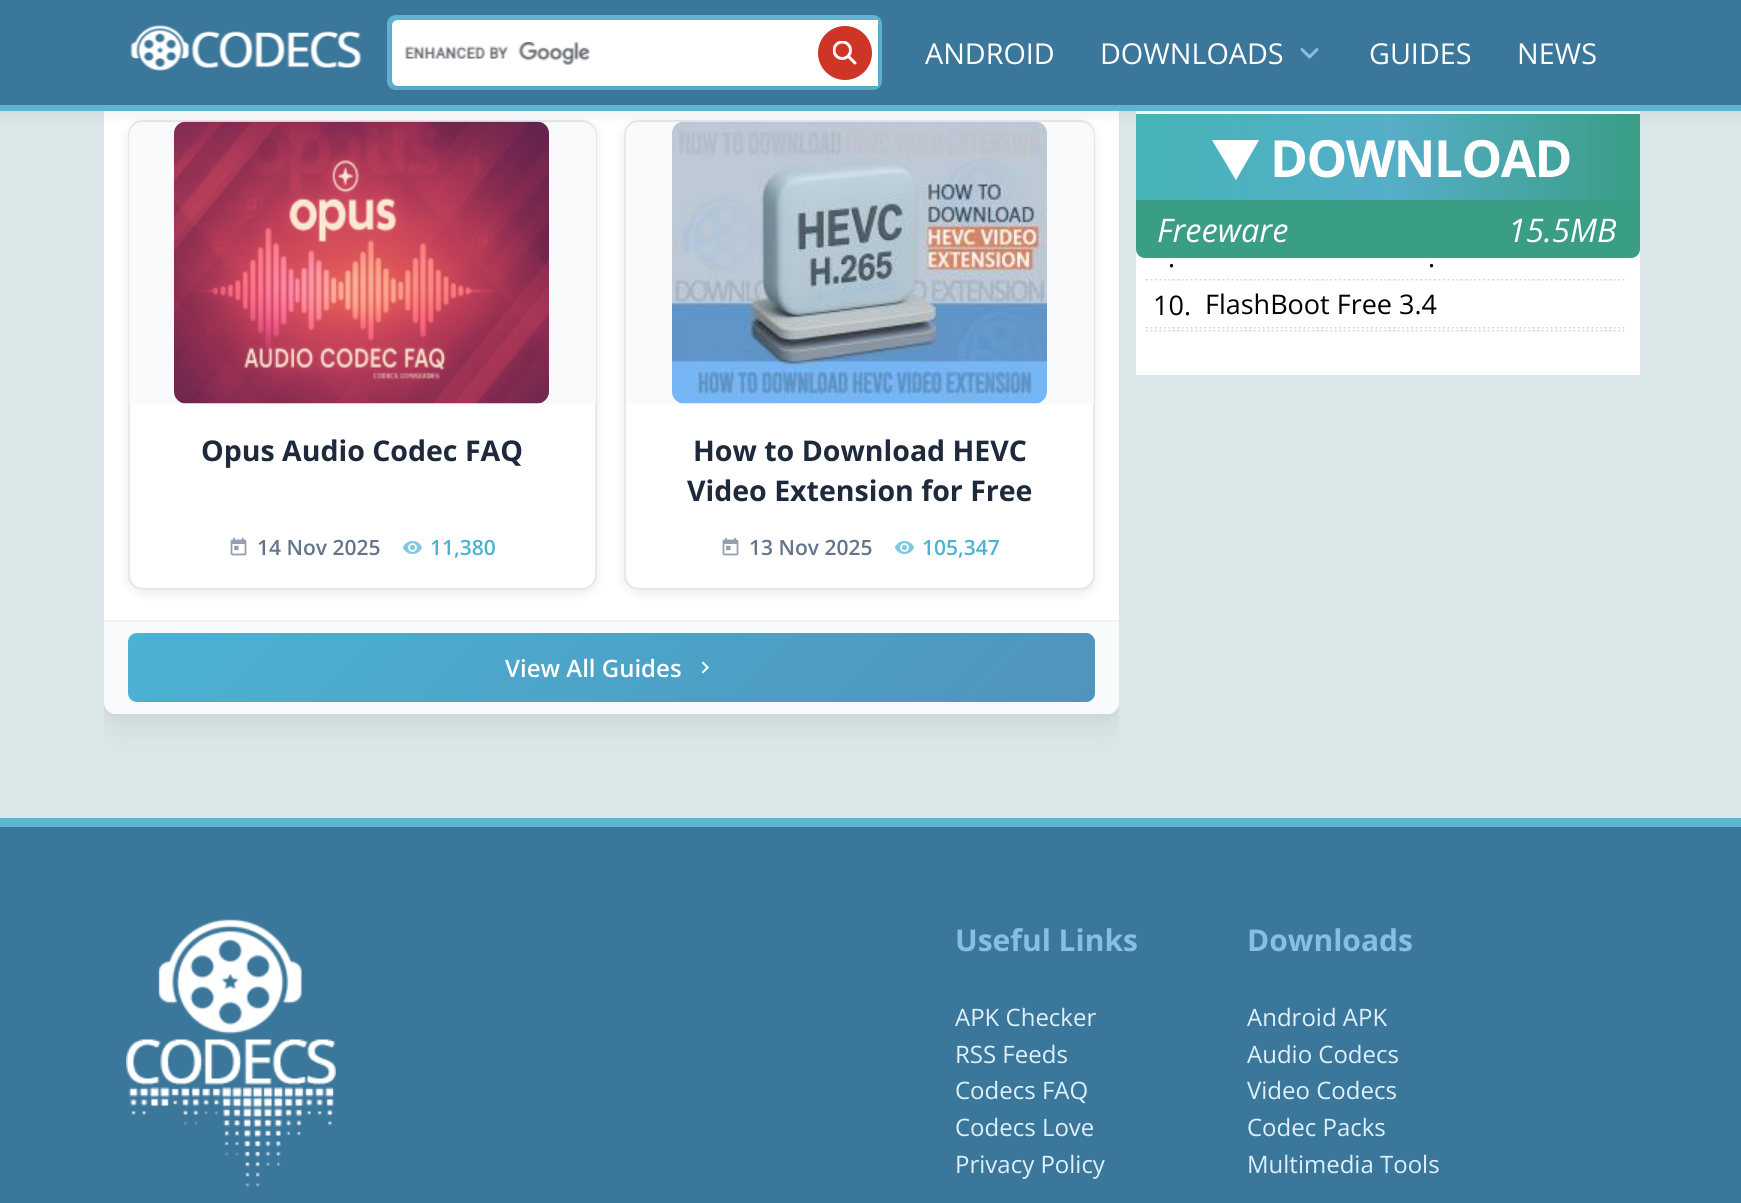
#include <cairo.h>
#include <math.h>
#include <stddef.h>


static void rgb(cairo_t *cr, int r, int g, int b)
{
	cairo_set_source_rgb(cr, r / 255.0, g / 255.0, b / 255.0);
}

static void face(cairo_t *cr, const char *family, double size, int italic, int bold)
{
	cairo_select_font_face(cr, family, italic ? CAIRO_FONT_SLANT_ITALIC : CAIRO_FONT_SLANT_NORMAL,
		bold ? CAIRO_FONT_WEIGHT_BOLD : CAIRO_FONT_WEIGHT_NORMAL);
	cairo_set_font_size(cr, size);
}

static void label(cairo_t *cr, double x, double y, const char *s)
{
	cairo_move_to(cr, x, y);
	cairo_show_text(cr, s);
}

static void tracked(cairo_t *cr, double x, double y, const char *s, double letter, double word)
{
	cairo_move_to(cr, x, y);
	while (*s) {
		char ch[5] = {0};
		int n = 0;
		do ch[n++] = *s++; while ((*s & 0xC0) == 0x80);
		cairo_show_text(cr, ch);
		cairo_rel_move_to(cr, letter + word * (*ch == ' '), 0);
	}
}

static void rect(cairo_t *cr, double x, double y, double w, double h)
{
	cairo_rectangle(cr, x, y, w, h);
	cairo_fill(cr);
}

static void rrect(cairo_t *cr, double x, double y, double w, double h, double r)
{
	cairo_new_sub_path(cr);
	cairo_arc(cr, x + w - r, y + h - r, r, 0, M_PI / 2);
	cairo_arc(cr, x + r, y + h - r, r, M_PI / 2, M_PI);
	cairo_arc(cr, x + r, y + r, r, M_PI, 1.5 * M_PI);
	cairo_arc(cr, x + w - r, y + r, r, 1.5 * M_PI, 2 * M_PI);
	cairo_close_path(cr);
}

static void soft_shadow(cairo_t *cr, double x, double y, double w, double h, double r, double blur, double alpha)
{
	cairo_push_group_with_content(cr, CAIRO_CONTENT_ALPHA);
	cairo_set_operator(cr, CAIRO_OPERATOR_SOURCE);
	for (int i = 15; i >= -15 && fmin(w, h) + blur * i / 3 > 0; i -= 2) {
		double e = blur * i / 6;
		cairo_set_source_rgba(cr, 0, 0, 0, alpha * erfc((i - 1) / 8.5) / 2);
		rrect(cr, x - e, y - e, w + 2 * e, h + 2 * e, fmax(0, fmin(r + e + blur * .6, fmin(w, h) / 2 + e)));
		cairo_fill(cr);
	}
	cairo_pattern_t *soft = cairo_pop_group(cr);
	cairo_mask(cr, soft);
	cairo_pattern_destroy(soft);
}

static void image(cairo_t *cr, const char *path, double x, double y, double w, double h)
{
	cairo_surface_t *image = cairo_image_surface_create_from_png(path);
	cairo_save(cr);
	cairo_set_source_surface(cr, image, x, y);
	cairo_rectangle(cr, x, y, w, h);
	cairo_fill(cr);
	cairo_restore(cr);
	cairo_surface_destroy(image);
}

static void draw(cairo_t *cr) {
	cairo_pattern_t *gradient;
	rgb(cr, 219, 230, 232);
	cairo_paint(cr);
	cairo_save(cr);
	cairo_rectangle(cr, 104, 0, 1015, 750);
	cairo_clip(cr);
	rgb(cr, 0, 0, 0);
	soft_shadow(cr, 104, -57, 1015, 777, 12, 15, 0.1);
	cairo_restore(cr);
	rgb(cr, 255, 255, 255);
	rect(cr, 1136, 111, 504, 264);
	rrect(cr, 104, -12, 1015, 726, 12);
	cairo_fill(cr);
	rgb(cr, 0, 0, 0);
	soft_shadow(cr, 128, 123, 469, 470, 15, 6, 0.08);
	rgb(cr, 255, 255, 255);
	rrect(cr, 129, 121, 467, 468, 14);
	cairo_fill_preserve(cr);
	rgb(cr, 229, 231, 235);
	cairo_stroke(cr);
	rgb(cr, 248, 250, 252);
	cairo_new_path(cr);
	cairo_move_to(cr, 143, 122);
	cairo_line_to(cr, 582, 122);
	cairo_curve_to(cr, 589.5, 122, 596, 128.5, 596, 136);
	cairo_line_to(cr, 596, 404);
	cairo_line_to(cr, 129, 404);
	cairo_line_to(cr, 129, 136);
	cairo_curve_to(cr, 129, 128.5, 135.5, 122, 143, 122);
	cairo_close_path(cr);
	cairo_fill(cr);
	image(cr, "image5.png", 174, 121, 375, 283);
	rgb(cr, 0, 0, 0);
	soft_shadow(cr, 624, 123, 471, 470, 15, 6, 0.08);
	rgb(cr, 255, 255, 255);
	rrect(cr, 625, 121, 469, 468, 14);
	cairo_fill_preserve(cr);
	rgb(cr, 229, 231, 235);
	cairo_stroke(cr);
	rgb(cr, 248, 250, 252);
	cairo_new_path(cr);
	cairo_move_to(cr, 640, 122);
	cairo_line_to(cr, 1080, 122);
	cairo_curve_to(cr, 1087.5, 122, 1094, 128.5, 1094, 136);
	cairo_line_to(cr, 1094, 404);
	cairo_line_to(cr, 626, 404);
	cairo_line_to(cr, 626, 136);
	cairo_curve_to(cr, 626, 128.5, 632.5, 122, 640, 122);
	cairo_close_path(cr);
	cairo_fill(cr);
	image(cr, "image8.png", 672, 121, 375, 283);
	rgb(cr, 0, 0, 0);
	soft_shadow(cr, 0, 0, 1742, 111, 0, 7.5, 0.1);
	rgb(cr, 59, 119, 155);
	rect(cr, 0, 0, 1741, 105);
	rgb(cr, 95, 179, 211);
	rect(cr, 0, 105, 1741, 6);
	image(cr, "image0.png", 130, 25, 232, 46);
	rrect(cr, 387, 15, 495, 75, 9);
	cairo_fill(cr);
	rgb(cr, 0, 0, 0);
	soft_shadow(cr, 392, 23, 486, 66, 6, 3, 0.1);
	rgb(cr, 255, 255, 255);
	cairo_new_path(cr);
	cairo_move_to(cr, 398, 20);
	cairo_line_to(cr, 878, 20);
	cairo_line_to(cr, 878, 86);
	cairo_line_to(cr, 398, 86);
	cairo_curve_to(cr, 394.5, 86, 392, 83.5, 392, 80);
	cairo_line_to(cr, 392, 26);
	cairo_curve_to(cr, 392, 22.5, 394.5, 20, 398, 20);
	cairo_close_path(cr);
	cairo_fill(cr);
	image(cr, "image1.png", 404, 42, 186, 23);
	rgb(cr, 206, 53, 39);
	cairo_arc(cr, 845, 53, 27, 0, 2 * M_PI);
	cairo_fill(cr);
	image(cr, "image2.png", 833, 41, 24, 24);
	face(cr, "Open Sans", 28.75, 0, 0);
	rgb(cr, 255, 255, 255);
	label(cr, 925, 64, "ANDROID");
	label(cr, 1100, 64, "DOWNLOADS");
	image(cr, "image3.png", 1300, 48, 19, 11);
	label(cr, 1369, 64, "GUIDES");
	label(cr, 1517, 64, "NEWS");
	rgb(cr, 58, 157, 133);
	rrect(cr, 1136, 114, 504, 144, 9);
	cairo_fill(cr);
	gradient = cairo_pattern_create_linear(1136, 157, 1640, 157);
	cairo_pattern_add_color_stop_rgba(gradient, 0, 0.271, 0.706, 0.718, 1);
	cairo_pattern_add_color_stop_rgba(gradient, 0.5, 0.337, 0.682, 0.788, 1);
	cairo_pattern_add_color_stop_rgba(gradient, 1, 0.227, 0.616, 0.522, 1);
	cairo_set_source(cr, gradient);
	cairo_pattern_destroy(gradient);
	rect(cr, 1136, 114, 504, 86);
	rgb(cr, 255, 255, 255);
	cairo_new_path(cr);
	cairo_move_to(cr, 1259, 140);
	cairo_line_to(cr, 1236, 180);
	cairo_line_to(cr, 1212, 140);
	cairo_close_path(cr);
	cairo_fill(cr);
	cairo_save(cr);
	cairo_rectangle(cr, 1212, 140, 48, 40);
	cairo_clip(cr);
	cairo_new_path(cr);
	cairo_move_to(cr, 1259.5, 139.5);
	cairo_line_to(cr, 1235.5, 180.5);
	cairo_line_to(cr, 1212, 139.5);
	cairo_close_path(cr);
	cairo_set_line_width(cr, 0.1);
	cairo_stroke(cr);
	cairo_restore(cr);
	face(cr, "Open Sans", 51.25, 0, 1);
	tracked(cr, 1270, 177, "DOWNLOAD", -1.5, 0);
	face(cr, "Open Sans", 32.5, 1, 0);
	label(cr, 1157, 242, "Freeware");
	label(cr, 1508, 242, "15.5MB");
	face(cr, "Open Sans", 27, 0, 0);
	rgb(cr, 0, 0, 0);
	label(cr, 1168, 267, ".");
	label(cr, 1428, 267, ".");
	image(cr, "image4.png", 1146, 279, 479, 2);
	label(cr, 1153, 315, "10.");
	label(cr, 1205, 314, "FlashBoot Free 3.4");
	image(cr, "image4.png", 1146, 327, 479, 2);
	image(cr, "image4.png", 1146, 330, 479, 2);
	face(cr, "Open Sans", 28.5, 0, 1);
	rgb(cr, 30, 41, 59);
	label(cr, 201, 461, "Opus Audio Codec FAQ");
	image(cr, "image6.png", 230, 537, 17, 19);
	face(cr, "Open Sans SemiBold", 21, 0, 0);
	rgb(cr, 100, 116, 139);
	label(cr, 257, 555, "14 Nov 2025");
	image(cr, "image7.png", 402, 540, 21, 15);
	rgb(cr, 75, 178, 213);
	label(cr, 430, 555, "11,380");
	face(cr, "Open Sans", 28.5, 0, 1);
	rgb(cr, 30, 41, 59);
	label(cr, 693, 461, "How to Download HEVC");
	label(cr, 687, 501, "Video Extension for Free");
	image(cr, "image6.png", 722, 537, 17, 19);
	face(cr, "Open Sans SemiBold", 21, 0, 0);
	rgb(cr, 100, 116, 139);
	label(cr, 749, 555, "13 Nov 2025");
	image(cr, "image7.png", 894, 540, 21, 15);
	rgb(cr, 75, 178, 213);
	label(cr, 922, 555, "105,347");
	rgb(cr, 248, 250, 251);
	cairo_new_path(cr);
	cairo_move_to(cr, 104, 620);
	cairo_line_to(cr, 1119, 620);
	cairo_line_to(cr, 1119, 702);
	cairo_curve_to(cr, 1119, 708.5, 1113.5, 714, 1107, 714);
	cairo_line_to(cr, 116, 714);
	cairo_curve_to(cr, 109.5, 714, 104, 708.5, 104, 702);
	cairo_close_path(cr);
	cairo_fill(cr);
	rgb(cr, 240, 242, 245);
	rect(cr, 104, 620, 1015, 2);
	gradient = cairo_pattern_create_linear(352, 408, 870, 927);
	cairo_pattern_add_color_stop_rgba(gradient, 0, 0.294, 0.698, 0.835, 1);
	cairo_pattern_add_color_stop_rgba(gradient, 1, 0.31, 0.58, 0.733, 1);
	cairo_set_source(cr, gradient);
	cairo_pattern_destroy(gradient);
	rrect(cr, 128, 633, 967, 69, 9);
	cairo_fill(cr);
	face(cr, "Open Sans SemiBold", 24, 0, 0);
	rgb(cr, 255, 255, 255);
	label(cr, 505, 677, "View All Guides");
	image(cr, "image9.png", 701, 661, 8, 13);
	rgb(cr, 59, 119, 155);
	rect(cr, 0, 827, 1741, 376);
	rgb(cr, 95, 179, 211);
	rect(cr, 0, 818, 1741, 9);
	image(cr, "image10.png", 126, 919, 210, 268);
	face(cr, "Open Sans", 30, 0, 1);
	rgb(cr, 133, 193, 223);
	label(cr, 955, 951, "Useful Links");
	face(cr, "Open Sans", 24, 0, 0);
	rgb(cr, 222, 240, 251);
	label(cr, 955, 1026, "APK Checker");
	label(cr, 955, 1063, "RSS Feeds");
	label(cr, 955, 1099, "Codecs FAQ");
	label(cr, 955, 1136, "Codecs Love");
	label(cr, 955, 1173, "Privacy Policy");
	face(cr, "Open Sans", 30, 0, 1);
	rgb(cr, 133, 193, 223);
	label(cr, 1247, 951, "Downloads");
	face(cr, "Open Sans", 24, 0, 0);
	rgb(cr, 222, 240, 251);
	label(cr, 1247, 1026, "Android APK");
	label(cr, 1247, 1063, "Audio Codecs");
	label(cr, 1247, 1099, "Video Codecs");
	label(cr, 1247, 1136, "Codec Packs");
	label(cr, 1247, 1173, "Multimedia Tools");
}

int main(void) {
	cairo_surface_t *surface = cairo_image_surface_create(CAIRO_FORMAT_RGB24, 1741, 1203);
	cairo_t *cr = cairo_create(surface);
	cairo_font_options_t *options = cairo_font_options_create();
	cairo_font_options_set_hint_metrics(options, CAIRO_HINT_METRICS_OFF);
	cairo_font_options_set_hint_style(options, CAIRO_HINT_STYLE_NONE);
	cairo_set_font_options(cr, options);
	cairo_set_miter_limit(cr, 4);
	draw(cr);
	cairo_surface_write_to_png(surface, "render.png");
	cairo_font_options_destroy(options);
	cairo_destroy(cr);
	cairo_surface_destroy(surface);
	return 0;
}
